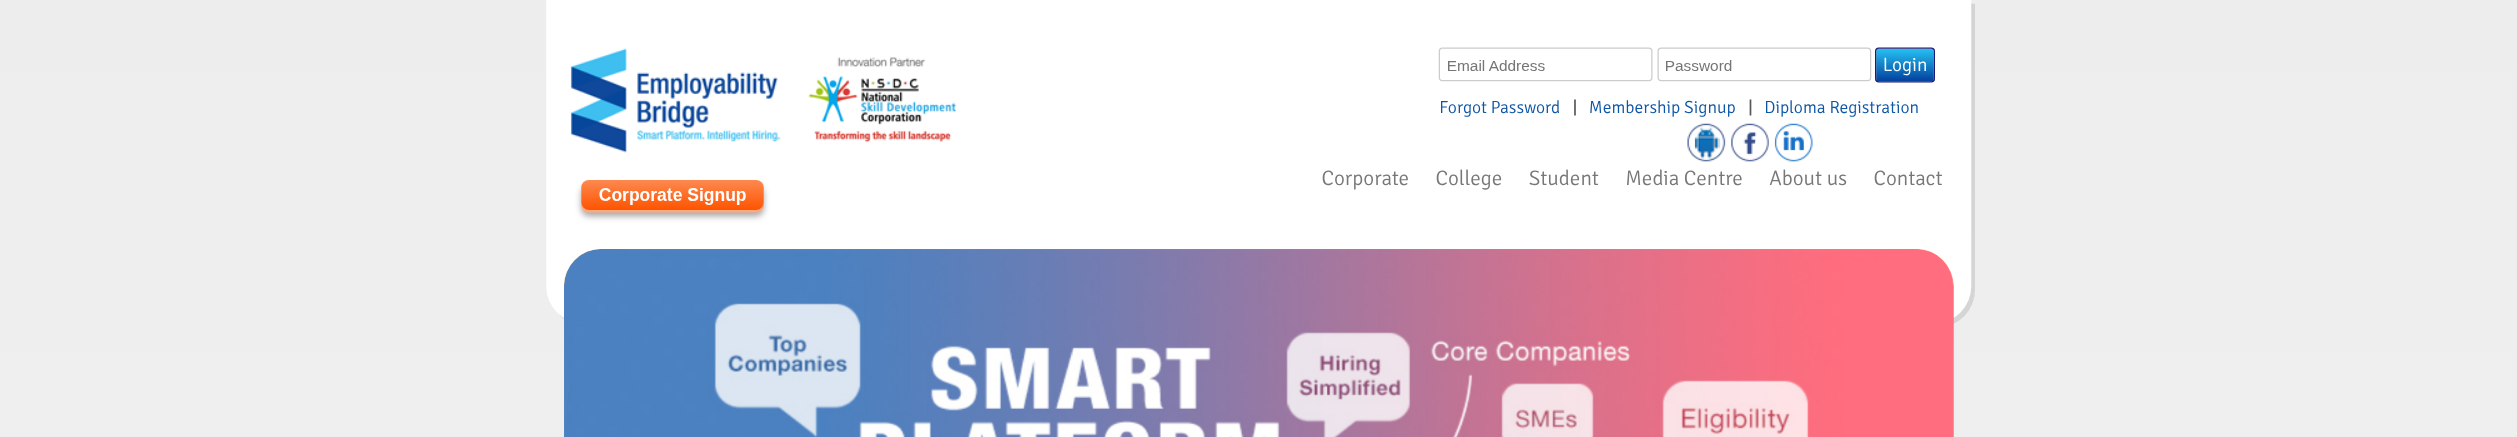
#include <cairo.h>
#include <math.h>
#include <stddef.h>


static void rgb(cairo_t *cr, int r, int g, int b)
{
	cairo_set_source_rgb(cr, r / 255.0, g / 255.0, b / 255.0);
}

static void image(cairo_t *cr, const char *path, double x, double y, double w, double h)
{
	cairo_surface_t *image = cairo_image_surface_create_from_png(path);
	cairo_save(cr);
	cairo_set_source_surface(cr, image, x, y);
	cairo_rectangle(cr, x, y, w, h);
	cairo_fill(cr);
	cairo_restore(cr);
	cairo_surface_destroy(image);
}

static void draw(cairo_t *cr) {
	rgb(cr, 255, 255, 255);
	cairo_paint(cr);
	image(cr, "image0.png", 0, 0, 2517, 437);
}

int main(void) {
	cairo_surface_t *surface = cairo_image_surface_create(CAIRO_FORMAT_RGB24, 2517, 437);
	cairo_t *cr = cairo_create(surface);
	cairo_font_options_t *options = cairo_font_options_create();
	cairo_font_options_set_hint_metrics(options, CAIRO_HINT_METRICS_OFF);
	cairo_font_options_set_hint_style(options, CAIRO_HINT_STYLE_NONE);
	cairo_set_font_options(cr, options);
	cairo_set_miter_limit(cr, 4);
	draw(cr);
	cairo_surface_write_to_png(surface, "render.png");
	cairo_font_options_destroy(options);
	cairo_destroy(cr);
	cairo_surface_destroy(surface);
	return 0;
}
